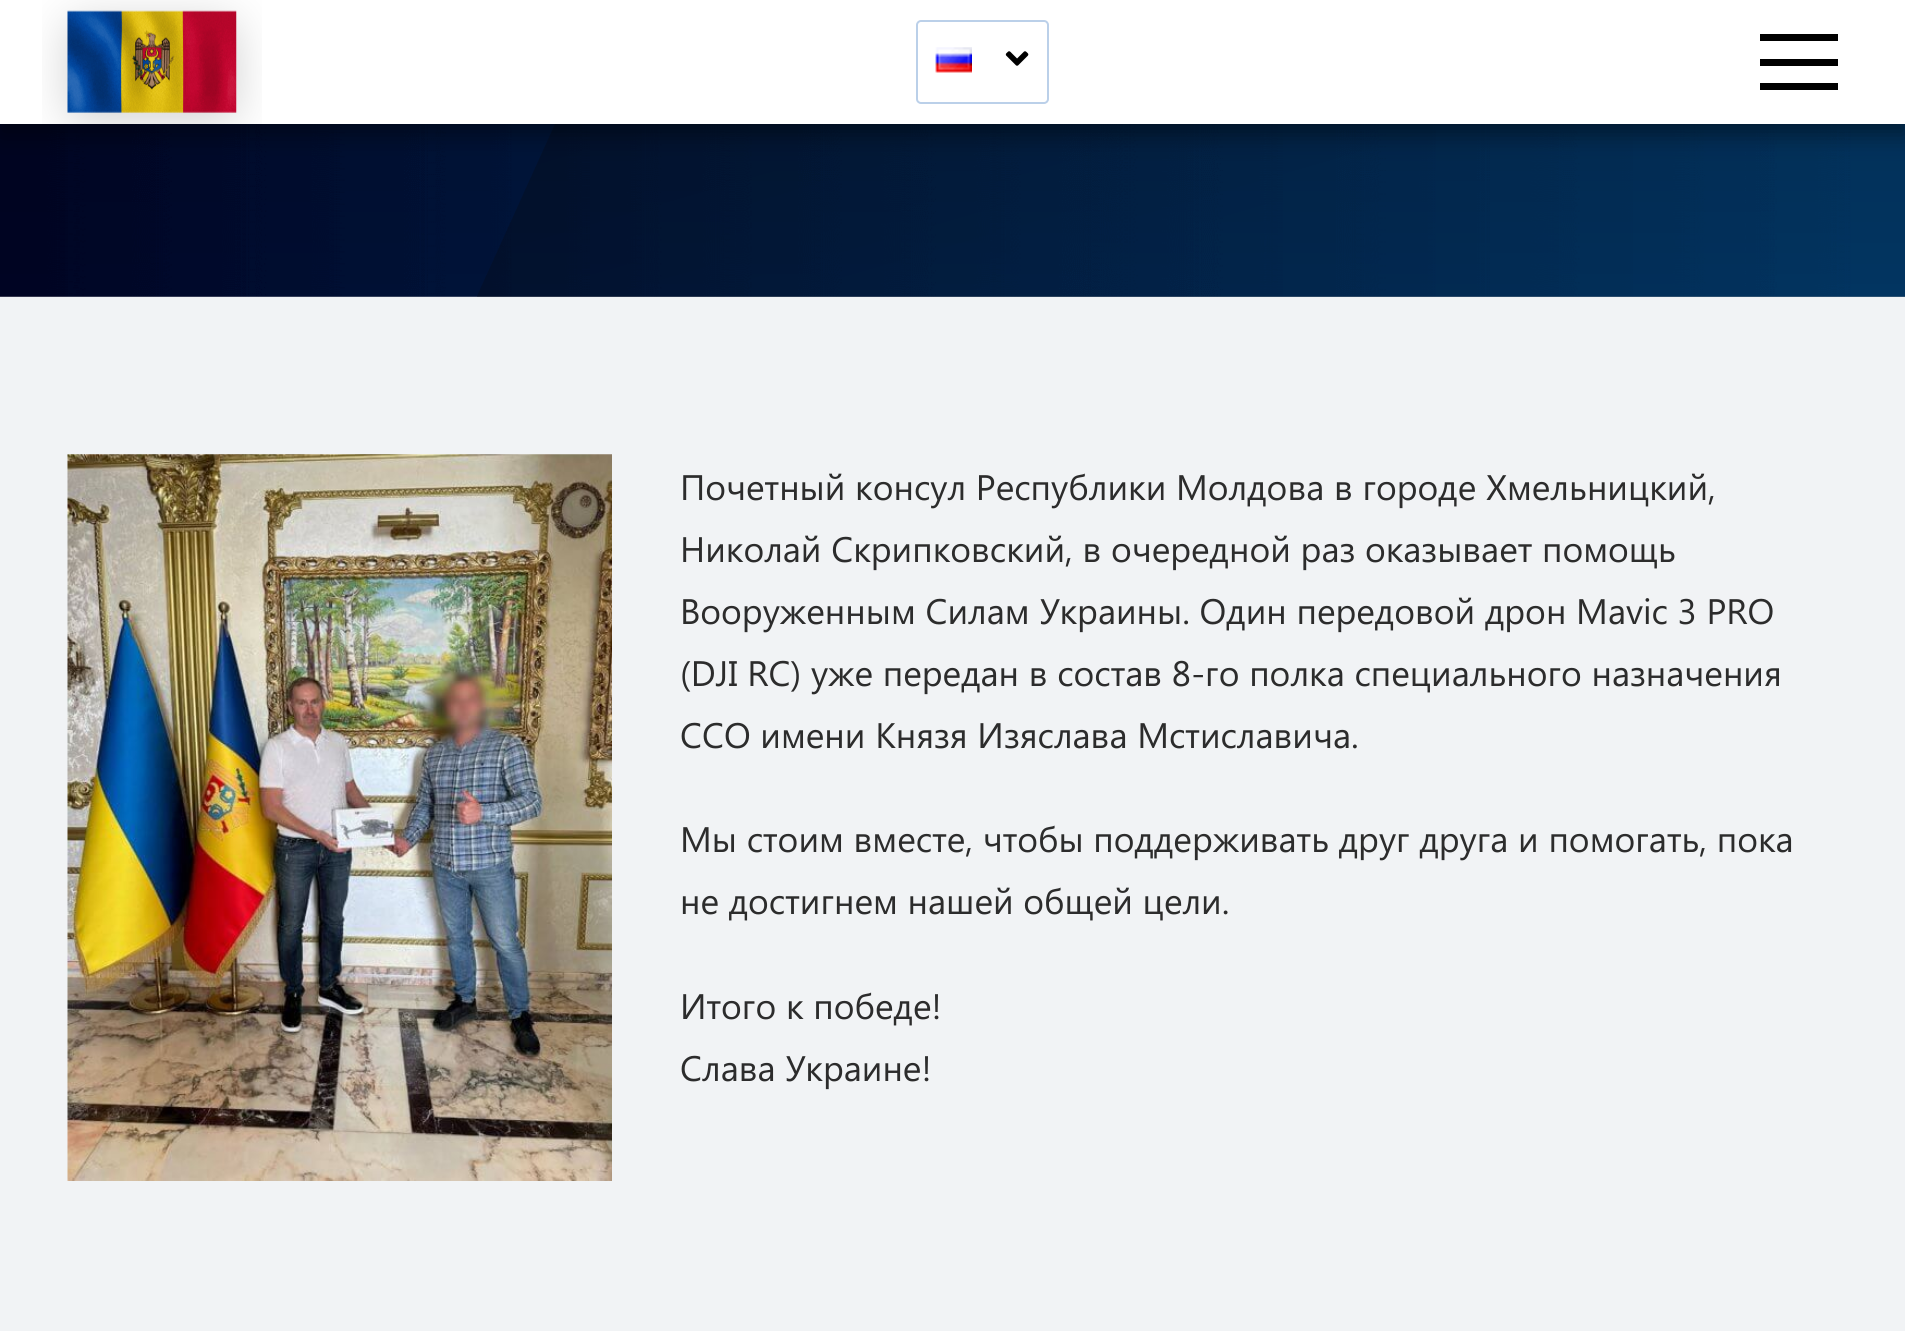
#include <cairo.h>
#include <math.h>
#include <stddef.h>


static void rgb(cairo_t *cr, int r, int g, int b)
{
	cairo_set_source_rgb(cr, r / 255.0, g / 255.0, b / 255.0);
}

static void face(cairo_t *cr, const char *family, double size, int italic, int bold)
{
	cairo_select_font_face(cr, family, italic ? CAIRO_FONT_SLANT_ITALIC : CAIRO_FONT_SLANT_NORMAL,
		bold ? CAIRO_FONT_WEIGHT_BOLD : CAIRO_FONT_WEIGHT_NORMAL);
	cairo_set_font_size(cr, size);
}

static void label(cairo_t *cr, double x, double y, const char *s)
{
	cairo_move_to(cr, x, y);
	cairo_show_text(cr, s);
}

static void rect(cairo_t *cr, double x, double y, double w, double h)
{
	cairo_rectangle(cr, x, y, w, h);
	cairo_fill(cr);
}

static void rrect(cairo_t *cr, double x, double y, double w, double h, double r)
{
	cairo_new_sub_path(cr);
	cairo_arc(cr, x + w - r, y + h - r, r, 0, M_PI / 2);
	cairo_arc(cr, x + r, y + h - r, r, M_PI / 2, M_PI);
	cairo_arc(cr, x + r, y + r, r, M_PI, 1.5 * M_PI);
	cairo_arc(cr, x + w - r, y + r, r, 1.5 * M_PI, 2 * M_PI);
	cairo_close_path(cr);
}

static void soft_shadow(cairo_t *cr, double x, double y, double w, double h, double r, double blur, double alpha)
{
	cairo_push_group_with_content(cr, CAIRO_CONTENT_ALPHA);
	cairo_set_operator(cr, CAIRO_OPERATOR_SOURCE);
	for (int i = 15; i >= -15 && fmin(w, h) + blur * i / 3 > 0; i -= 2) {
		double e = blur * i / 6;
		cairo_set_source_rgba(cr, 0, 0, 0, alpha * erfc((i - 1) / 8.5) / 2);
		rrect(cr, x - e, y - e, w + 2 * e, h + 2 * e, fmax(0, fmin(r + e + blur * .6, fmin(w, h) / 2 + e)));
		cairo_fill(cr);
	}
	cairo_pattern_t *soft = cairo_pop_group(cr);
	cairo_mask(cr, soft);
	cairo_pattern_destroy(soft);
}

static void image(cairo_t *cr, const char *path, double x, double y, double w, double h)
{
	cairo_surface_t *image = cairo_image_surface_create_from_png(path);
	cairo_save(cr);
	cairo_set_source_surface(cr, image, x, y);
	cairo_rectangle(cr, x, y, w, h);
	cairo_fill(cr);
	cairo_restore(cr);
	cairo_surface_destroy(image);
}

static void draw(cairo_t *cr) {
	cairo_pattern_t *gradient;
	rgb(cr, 255, 255, 255);
	cairo_paint(cr);
	image(cr, "image3.png", 0, 124, 1905, 173);
	gradient = cairo_pattern_create_linear(903, -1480, 1459, 427);
	cairo_pattern_add_color_stop_rgba(gradient, 0, 0.035, 0.035, 0.035, 0.5);
	cairo_pattern_add_color_stop_rgba(gradient, 0.87, 0.035, 0.035, 0.035, 0.22);
	cairo_set_source(cr, gradient);
	cairo_pattern_destroy(gradient);
	cairo_new_path(cr);
	cairo_move_to(cr, 477, 296);
	cairo_line_to(cr, 1191, -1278);
	cairo_line_to(cr, 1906, -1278);
	cairo_line_to(cr, 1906, 297);
	cairo_line_to(cr, 477, 297);
	cairo_close_path(cr);
	cairo_fill(cr);
	gradient = cairo_pattern_create_linear(953, -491, 953, 297);
	cairo_pattern_add_color_stop_rgba(gradient, 0, 0, 0, 0, 0.45);
	cairo_pattern_add_color_stop_rgba(gradient, 1, 0, 0, 0, 0.15);
	cairo_set_source(cr, gradient);
	cairo_pattern_destroy(gradient);
	rect(cr, 0, 124, 1905, 173);
	rgb(cr, 0, 0, 0);
	soft_shadow(cr, 0, 11, 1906, 124, 0, 11, 0.4);
	rgb(cr, 255, 255, 255);
	rect(cr, 0, 0, 1905, 124);
	image(cr, "image0.png", 42, 0, 220, 124);
	rrect(cr, 917, 21, 131, 82, 4);
	rgb(cr, 187, 208, 233);
	cairo_stroke(cr);
	image(cr, "image1.png", 935, 47, 37, 26);
	image(cr, "image2.png", 1005, 51, 24, 15);
	rgb(cr, 0, 0, 0);
	rect(cr, 1760, 34, 78, 7);
	rect(cr, 1760, 59, 78, 7);
	rect(cr, 1760, 83, 78, 7);
	rgb(cr, 241, 243, 245);
	rect(cr, 0, 297, 1905, 1034);
	image(cr, "image4.png", 67, 454, 545, 727);
	face(cr, "Segoe UI", 35.45, 0, 0);
	rgb(cr, 44, 44, 44);
	label(cr, 680, 500, "Почетный консул Республики Молдова в городе Хмельницкий,");
	label(cr, 680, 562, "Николай Скрипковский, в очередной раз оказывает помощь");
	label(cr, 680, 624, "Вооруженным Силам Украины. Один передовой дрон Mavic 3 PRO");
	label(cr, 680, 686, "(DJI RC) уже передан в состав 8-го полка специального назначения");
	label(cr, 680, 748, "ССО имени Князя Изяслава Мстиславича.");
	label(cr, 680, 852, "Мы стоим вместе, чтобы поддерживать друг друга и помогать, пока");
	label(cr, 680, 914, "не достигнем нашей общей цели.");
	label(cr, 680, 1019, "Итого к победе!");
	label(cr, 680, 1081, "Слава Украине!");
}

int main(void) {
	cairo_surface_t *surface = cairo_image_surface_create(CAIRO_FORMAT_RGB24, 1905, 1331);
	cairo_t *cr = cairo_create(surface);
	cairo_font_options_t *options = cairo_font_options_create();
	cairo_font_options_set_hint_metrics(options, CAIRO_HINT_METRICS_OFF);
	cairo_font_options_set_hint_style(options, CAIRO_HINT_STYLE_NONE);
	cairo_set_font_options(cr, options);
	cairo_set_miter_limit(cr, 4);
	draw(cr);
	cairo_surface_write_to_png(surface, "render.png");
	cairo_font_options_destroy(options);
	cairo_destroy(cr);
	cairo_surface_destroy(surface);
	return 0;
}
